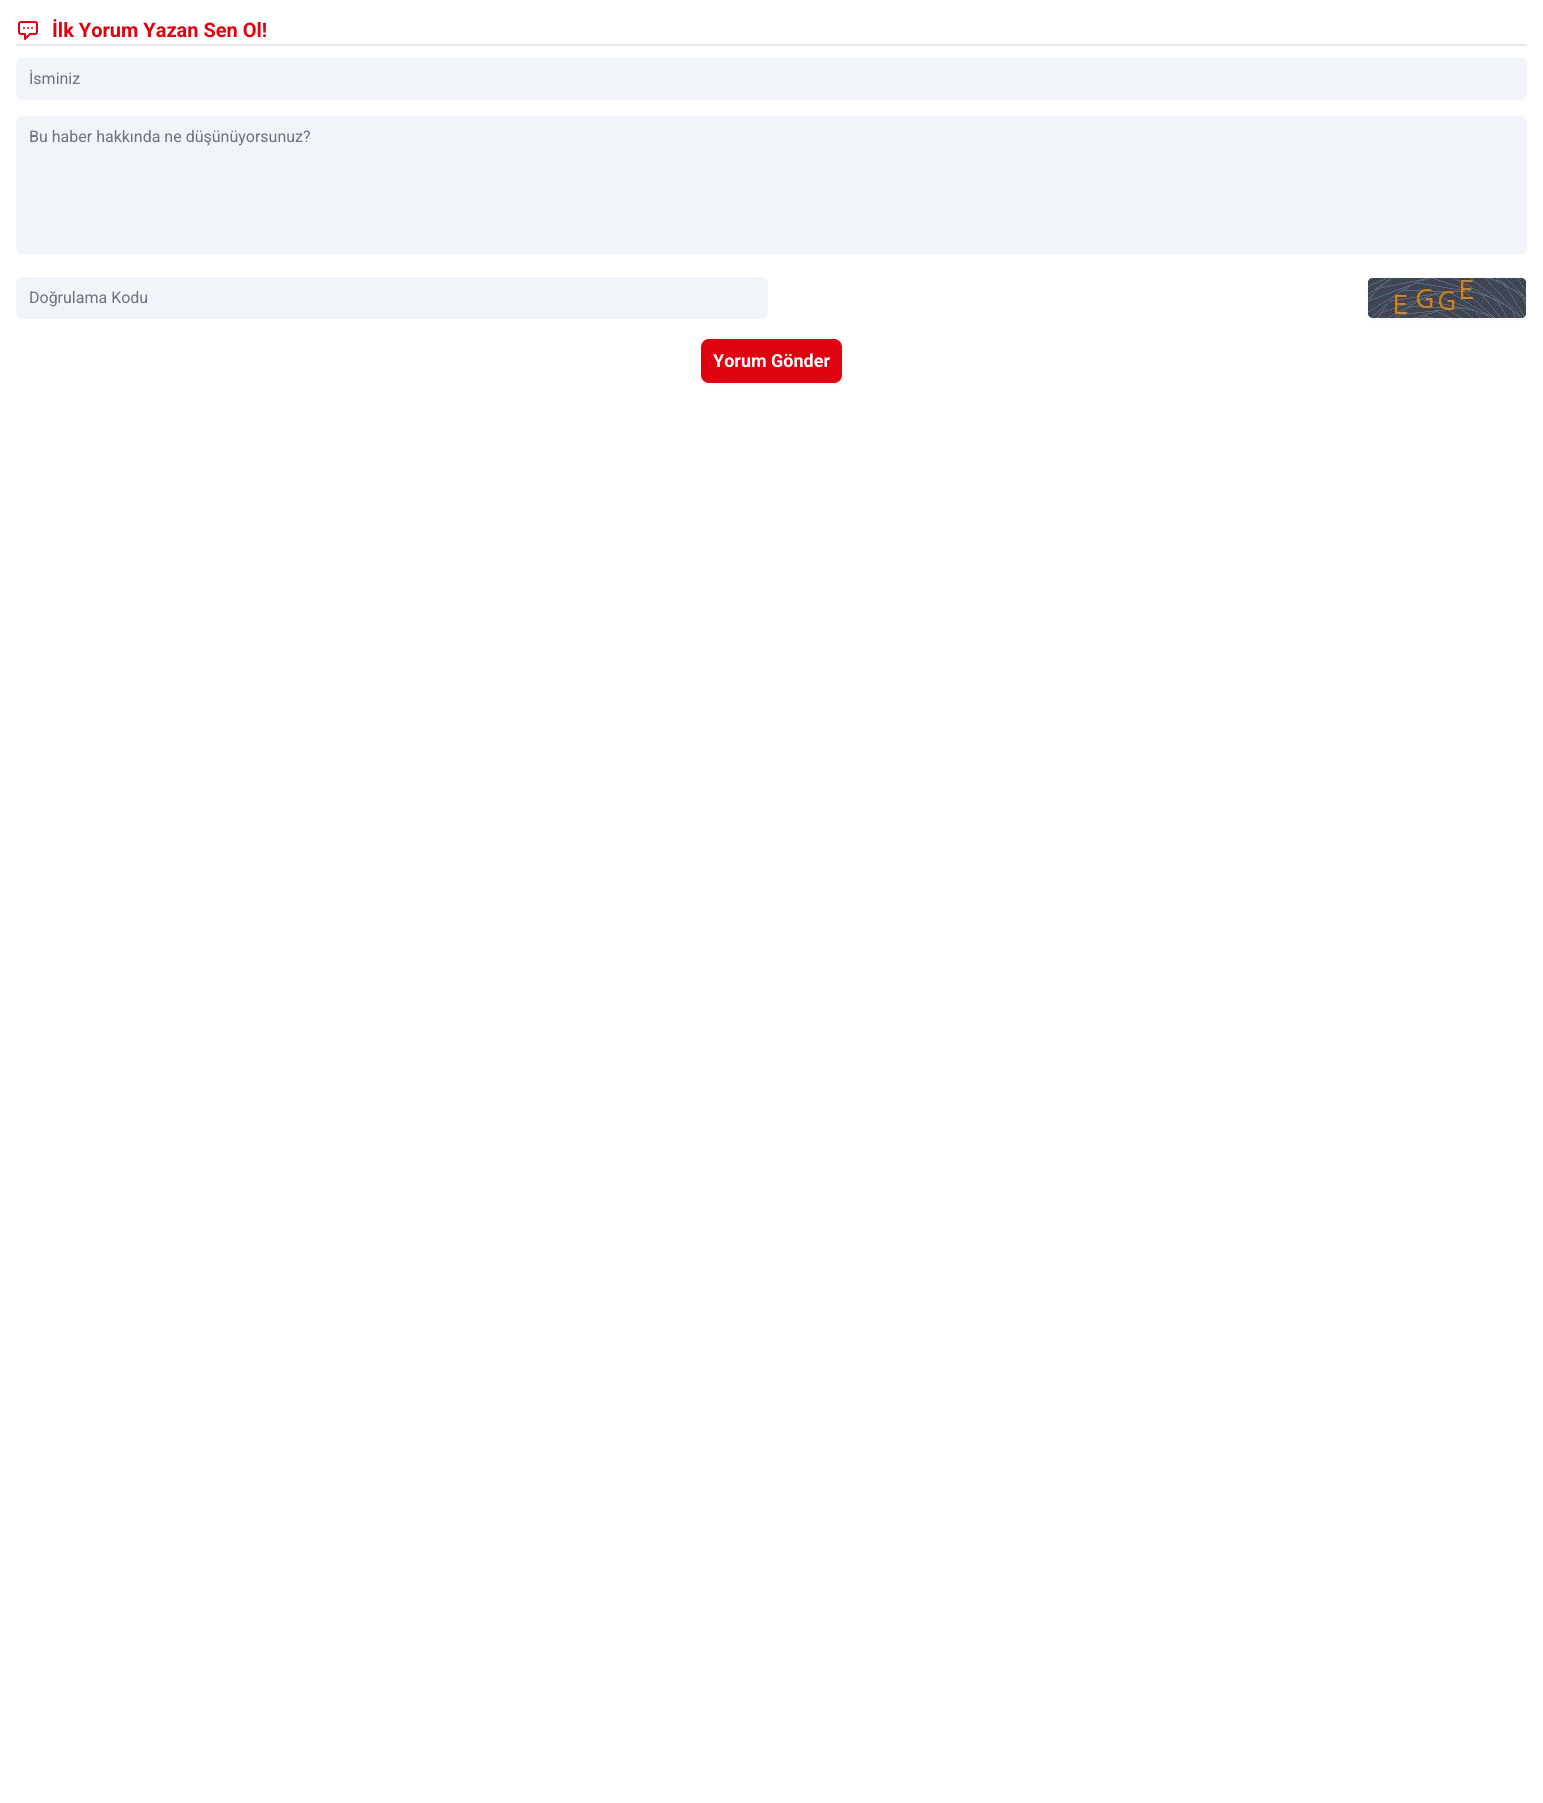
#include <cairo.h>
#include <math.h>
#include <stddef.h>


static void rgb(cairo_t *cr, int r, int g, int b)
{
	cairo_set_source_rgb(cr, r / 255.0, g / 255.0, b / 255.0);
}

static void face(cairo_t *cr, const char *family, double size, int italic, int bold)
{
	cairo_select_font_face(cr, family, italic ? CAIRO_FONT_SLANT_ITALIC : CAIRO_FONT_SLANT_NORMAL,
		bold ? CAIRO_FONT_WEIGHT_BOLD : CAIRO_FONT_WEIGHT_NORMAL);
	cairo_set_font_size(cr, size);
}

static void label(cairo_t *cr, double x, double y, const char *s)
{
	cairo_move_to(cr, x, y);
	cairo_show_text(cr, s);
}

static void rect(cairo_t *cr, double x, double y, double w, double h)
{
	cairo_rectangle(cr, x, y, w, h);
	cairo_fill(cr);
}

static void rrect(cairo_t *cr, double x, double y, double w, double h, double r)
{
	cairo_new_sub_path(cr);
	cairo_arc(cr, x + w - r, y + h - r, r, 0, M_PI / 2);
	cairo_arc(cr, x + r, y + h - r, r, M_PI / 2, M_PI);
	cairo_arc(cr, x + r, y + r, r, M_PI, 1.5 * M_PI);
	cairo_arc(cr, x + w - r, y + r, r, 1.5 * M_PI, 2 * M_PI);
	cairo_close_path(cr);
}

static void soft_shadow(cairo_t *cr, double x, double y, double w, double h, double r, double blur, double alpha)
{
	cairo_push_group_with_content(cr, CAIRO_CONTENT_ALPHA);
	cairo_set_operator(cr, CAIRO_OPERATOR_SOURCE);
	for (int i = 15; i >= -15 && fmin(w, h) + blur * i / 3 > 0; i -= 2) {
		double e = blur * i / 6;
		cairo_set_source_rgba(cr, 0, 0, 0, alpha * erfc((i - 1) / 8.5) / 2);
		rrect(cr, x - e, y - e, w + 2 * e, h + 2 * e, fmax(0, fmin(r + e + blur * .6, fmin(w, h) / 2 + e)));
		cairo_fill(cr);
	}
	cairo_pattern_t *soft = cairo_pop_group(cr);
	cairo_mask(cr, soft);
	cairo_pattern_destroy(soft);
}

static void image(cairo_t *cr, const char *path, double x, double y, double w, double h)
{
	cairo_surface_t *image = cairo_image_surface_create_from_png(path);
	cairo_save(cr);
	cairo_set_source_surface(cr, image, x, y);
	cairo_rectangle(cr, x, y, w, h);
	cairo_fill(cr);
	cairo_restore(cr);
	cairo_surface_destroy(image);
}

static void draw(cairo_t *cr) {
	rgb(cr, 255, 255, 255);
	cairo_paint(cr);
	rgb(cr, 226, 232, 240);
	rect(cr, 16, 44, 1511, 2);
	image(cr, "image0.png", 18, 21, 20, 19);
	face(cr, "Roboto", 20, 0, 1);
	rgb(cr, 225, 2, 16);
	label(cr, 52, 37, "İlk Yorum Yazan Sen Ol!");
	rgb(cr, 241, 245, 249);
	rrect(cr, 16, 58, 1511, 42, 6);
	cairo_fill(cr);
	face(cr, "Roboto", 16, 0, 0);
	rgb(cr, 107, 114, 128);
	label(cr, 29, 84, "İsminiz");
	rgb(cr, 241, 245, 249);
	rrect(cr, 16, 116, 1511, 138, 6);
	cairo_fill(cr);
	rgb(cr, 107, 114, 128);
	label(cr, 29, 142, "Bu haber hakkında ne düşünüyorsunuz?");
	rgb(cr, 241, 245, 249);
	rrect(cr, 16, 277, 752, 42, 6);
	cairo_fill(cr);
	rgb(cr, 107, 114, 128);
	label(cr, 29, 303, "Doğrulama Kodu");
	rgb(cr, 0, 0, 0);
	soft_shadow(cr, 1367, 278, 160, 42, 8, 1, 0.05);
	image(cr, "image1.png", 1367, 277, 160, 42);
	soft_shadow(cr, 701, 340, 141, 44, 8, 1, 0.05);
	rgb(cr, 225, 2, 16);
	rrect(cr, 701, 339, 141, 44, 8);
	cairo_fill(cr);
	face(cr, "Roboto", 18, 0, 1);
	rgb(cr, 255, 255, 255);
	label(cr, 713, 367, "Yorum Gönder");
}

int main(void) {
	cairo_surface_t *surface = cairo_image_surface_create(CAIRO_FORMAT_RGB24, 1543, 1803);
	cairo_t *cr = cairo_create(surface);
	cairo_font_options_t *options = cairo_font_options_create();
	cairo_font_options_set_hint_metrics(options, CAIRO_HINT_METRICS_OFF);
	cairo_font_options_set_hint_style(options, CAIRO_HINT_STYLE_NONE);
	cairo_set_font_options(cr, options);
	cairo_set_miter_limit(cr, 4);
	draw(cr);
	cairo_surface_write_to_png(surface, "render.png");
	cairo_font_options_destroy(options);
	cairo_destroy(cr);
	cairo_surface_destroy(surface);
	return 0;
}
